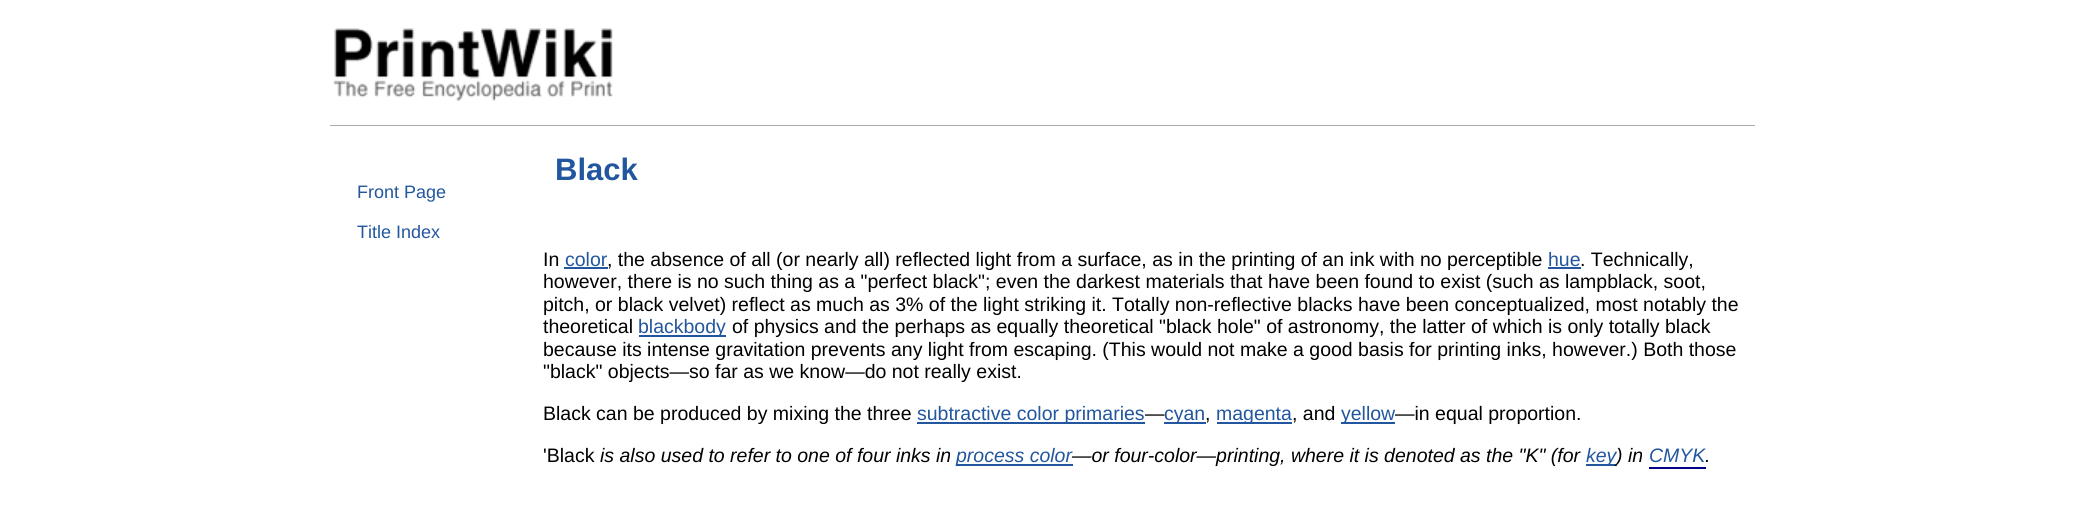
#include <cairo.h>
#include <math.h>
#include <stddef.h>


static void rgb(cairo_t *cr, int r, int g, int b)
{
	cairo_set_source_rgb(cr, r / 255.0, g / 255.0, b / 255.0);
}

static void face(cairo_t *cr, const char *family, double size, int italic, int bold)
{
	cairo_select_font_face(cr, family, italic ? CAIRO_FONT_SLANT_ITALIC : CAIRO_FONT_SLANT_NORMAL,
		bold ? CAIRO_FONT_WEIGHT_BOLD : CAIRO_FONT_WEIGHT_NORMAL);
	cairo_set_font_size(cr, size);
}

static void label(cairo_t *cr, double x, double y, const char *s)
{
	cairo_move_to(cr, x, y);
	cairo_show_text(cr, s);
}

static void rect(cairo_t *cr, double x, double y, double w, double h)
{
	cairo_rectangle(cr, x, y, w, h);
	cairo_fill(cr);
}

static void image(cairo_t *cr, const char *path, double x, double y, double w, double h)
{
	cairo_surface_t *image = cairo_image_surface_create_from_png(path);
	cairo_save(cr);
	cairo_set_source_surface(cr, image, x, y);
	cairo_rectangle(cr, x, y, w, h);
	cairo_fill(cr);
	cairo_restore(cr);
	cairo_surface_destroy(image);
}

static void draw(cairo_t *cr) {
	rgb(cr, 255, 255, 255);
	cairo_paint(cr);
	face(cr, "Liberation Sans", 31, 0, 1);
	rgb(cr, 34, 86, 158);
	label(cr, 555, 180, "Black");
	rgb(cr, 170, 170, 170);
	rect(cr, 330, 125, 1425, 1);
	image(cr, "image0.png", 333, 28, 280, 73);
	face(cr, "Liberation Sans", 18, 0, 0);
	rgb(cr, 34, 86, 158);
	label(cr, 357, 198, "Front Page");
	label(cr, 357, 238, "Title Index");
	face(cr, "Liberation Sans", 19.5, 0, 0);
	rgb(cr, 0, 0, 0);
	label(cr, 543, 266, "In");
	rgb(cr, 34, 86, 158);
	label(cr, 565, 266, "color");
	rect(cr, 564, 267, 44, 2);
	rgb(cr, 0, 0, 0);
	label(cr, 607, 266, ", the absence of all (or nearly all) reflected light from a surface, as in the printing of an ink with no perceptible");
	rgb(cr, 34, 86, 158);
	label(cr, 1548, 266, "hue");
	rect(cr, 1548, 267, 33, 2);
	rgb(cr, 0, 0, 0);
	label(cr, 1580, 266, ". Technically,");
	label(cr, 543, 288, "however, there is no such thing as a \"perfect black\"; even the darkest materials that have been found to exist (such as lampblack, soot,");
	label(cr, 543, 311, "pitch, or black velvet) reflect as much as 3% of the light striking it. Totally non-reflective blacks have been conceptualized, most notably the");
	label(cr, 543, 333, "theoretical");
	rgb(cr, 34, 86, 158);
	rect(cr, 639, 335, 87, 2);
	label(cr, 638, 333, "blackbody");
	rgb(cr, 0, 0, 0);
	label(cr, 732, 333, "of physics and the perhaps as equally theoretical \"black hole\" of astronomy, the latter of which is only totally black");
	label(cr, 543, 356, "because its intense gravitation prevents any light from escaping. (This would not make a good basis for printing inks, however.) Both those");
	label(cr, 543, 378, "\"black\" objects—so far as we know—do not really exist.");
	label(cr, 543, 420, "Black can be produced by mixing the three");
	rgb(cr, 34, 86, 158);
	rect(cr, 917, 422, 228, 2);
	label(cr, 917, 420, "subtractive color primaries");
	rgb(cr, 0, 0, 0);
	label(cr, 1145, 420, "—");
	rgb(cr, 34, 86, 158);
	rect(cr, 1164, 422, 42, 2);
	label(cr, 1164, 420, "cyan");
	rect(cr, 1217, 422, 75, 2);
	label(cr, 1216, 420, "magenta");
	rgb(cr, 0, 0, 0);
	label(cr, 1292, 420, ", and");
	rgb(cr, 34, 86, 158);
	rect(cr, 1341, 422, 54, 2);
	label(cr, 1341, 420, "yellow");
	rgb(cr, 0, 0, 0);
	label(cr, 1395, 420, "—in equal proportion.");
	label(cr, 1205, 420, ",");
	label(cr, 543, 462, "'Black");
	face(cr, "Liberation Sans", 19.5, 1, 0);
	label(cr, 600, 462, "is also used to refer to one of four inks in");
	rgb(cr, 34, 86, 158);
	rect(cr, 957, 464, 116, 2);
	label(cr, 956, 462, "process color");
	rgb(cr, 0, 0, 0);
	label(cr, 1072, 462, "—or four-color—printing, where it is denoted as the \"K\" (for");
	rgb(cr, 34, 86, 158);
	rect(cr, 1586, 464, 31, 2);
	label(cr, 1586, 462, "key");
	rgb(cr, 0, 0, 0);
	label(cr, 1616, 462, ") in");
	rgb(cr, 34, 86, 158);
	label(cr, 1649, 462, "CMYK");
	rgb(cr, 0, 0, 0);
	label(cr, 1705, 462, ".");
	rgb(cr, 0, 0, 136);
	rect(cr, 1649, 467, 57, 2);
}

int main(void) {
	cairo_surface_t *surface = cairo_image_surface_create(CAIRO_FORMAT_RGB24, 2085, 529);
	cairo_t *cr = cairo_create(surface);
	cairo_font_options_t *options = cairo_font_options_create();
	cairo_font_options_set_hint_metrics(options, CAIRO_HINT_METRICS_OFF);
	cairo_font_options_set_hint_style(options, CAIRO_HINT_STYLE_NONE);
	cairo_set_font_options(cr, options);
	cairo_set_miter_limit(cr, 4);
	draw(cr);
	cairo_surface_write_to_png(surface, "render.png");
	cairo_font_options_destroy(options);
	cairo_destroy(cr);
	cairo_surface_destroy(surface);
	return 0;
}
